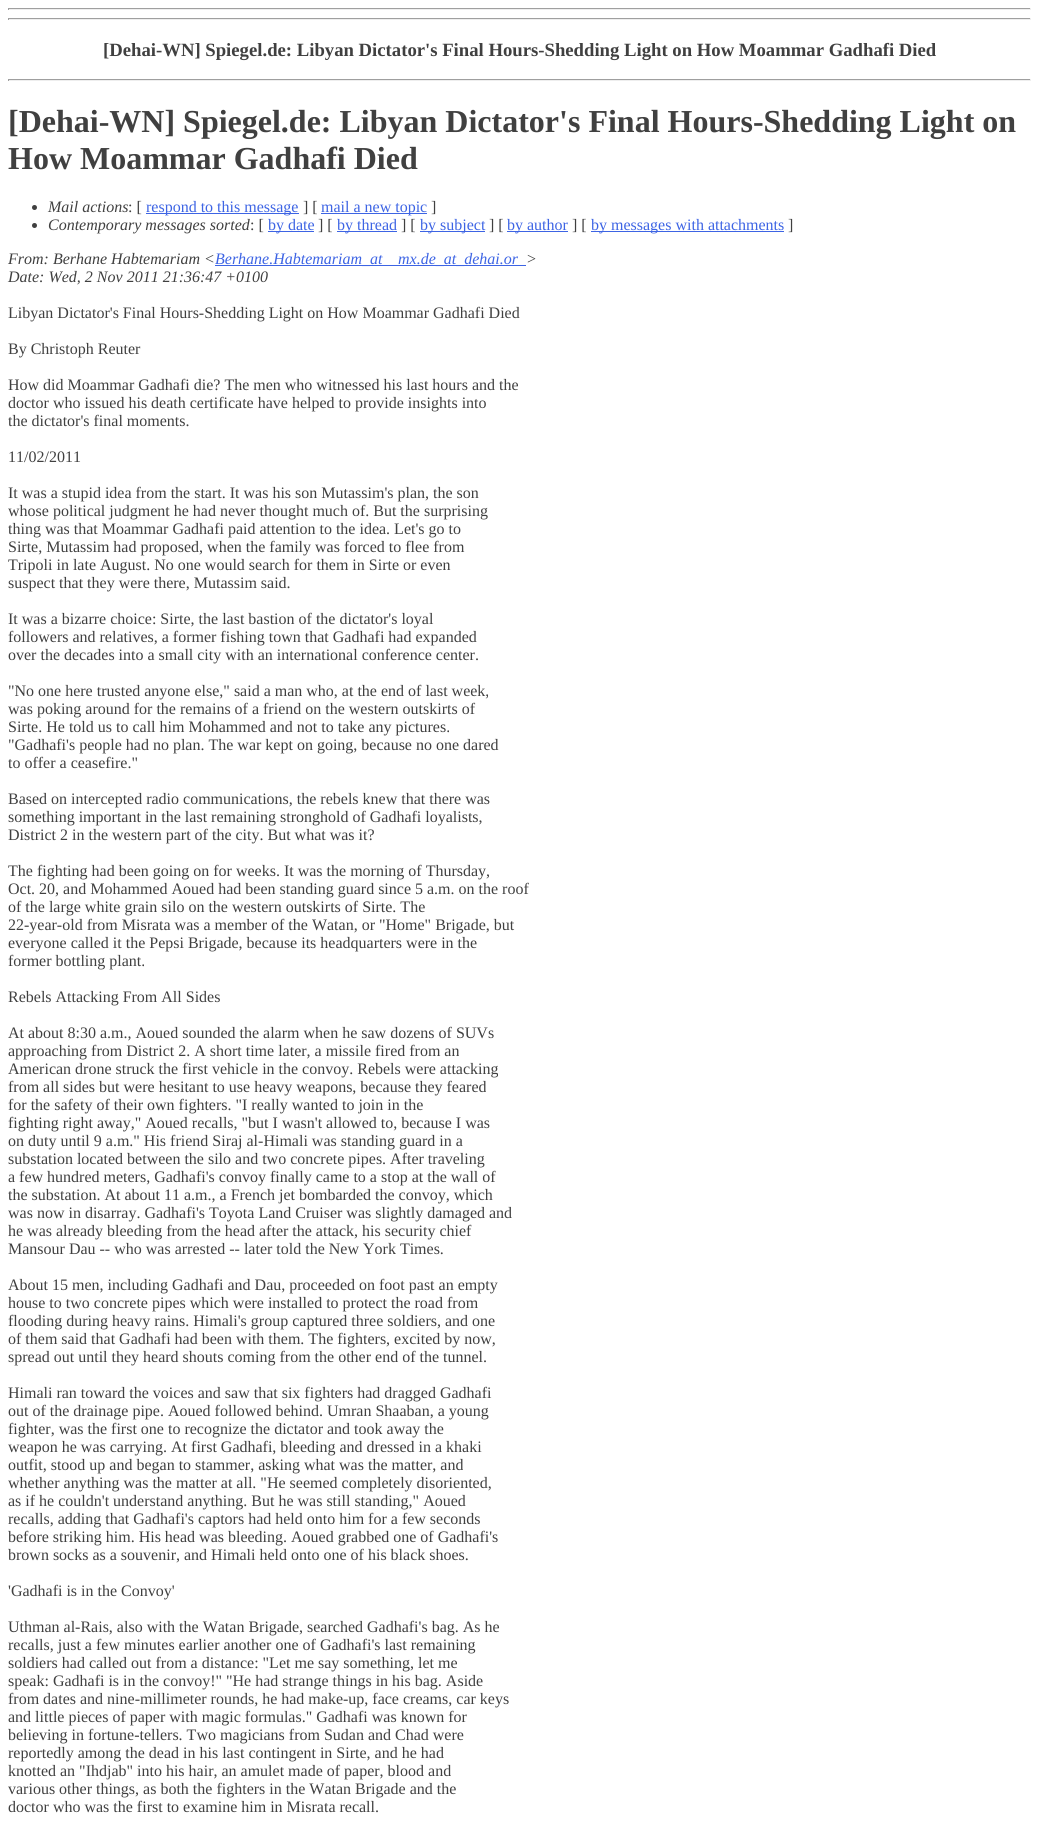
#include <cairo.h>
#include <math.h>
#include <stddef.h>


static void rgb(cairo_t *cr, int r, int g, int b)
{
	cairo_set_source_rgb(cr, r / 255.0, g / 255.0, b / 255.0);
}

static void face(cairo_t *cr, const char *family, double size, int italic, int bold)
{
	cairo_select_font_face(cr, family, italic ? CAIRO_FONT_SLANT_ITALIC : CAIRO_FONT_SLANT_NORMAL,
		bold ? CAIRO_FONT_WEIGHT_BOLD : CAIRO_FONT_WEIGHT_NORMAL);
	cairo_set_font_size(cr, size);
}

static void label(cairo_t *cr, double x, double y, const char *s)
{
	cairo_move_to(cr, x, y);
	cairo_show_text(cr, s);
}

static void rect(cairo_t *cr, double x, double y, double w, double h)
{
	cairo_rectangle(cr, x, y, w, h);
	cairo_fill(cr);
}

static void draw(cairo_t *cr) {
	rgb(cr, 255, 255, 255);
	cairo_paint(cr);
	rgb(cr, 159, 159, 159);
	rect(cr, 8, 8, 1023, 1);
	rgb(cr, 238, 238, 238);
	rect(cr, 1030, 8, 1, 2);
	rect(cr, 8, 9, 1023, 1);
	rgb(cr, 159, 159, 159);
	rect(cr, 8, 8, 1, 2);
	rect(cr, 8, 18, 1023, 1);
	rgb(cr, 238, 238, 238);
	rect(cr, 1030, 18, 1, 2);
	rect(cr, 8, 19, 1023, 1);
	rgb(cr, 159, 159, 159);
	rect(cr, 8, 18, 1, 2);
	face(cr, "Liberation Serif", 18.7, 0, 1);
	rgb(cr, 64, 64, 64);
	label(cr, 103, 56, "[Dehai-WN] Spiegel.de: Libyan Dictator's Final Hours-Shedding Light on How Moammar Gadhafi Died");
	rgb(cr, 159, 159, 159);
	rect(cr, 8, 79, 1023, 1);
	rgb(cr, 238, 238, 238);
	rect(cr, 1030, 79, 1, 2);
	rect(cr, 8, 80, 1023, 1);
	rgb(cr, 159, 159, 159);
	rect(cr, 8, 79, 1, 2);
	face(cr, "Liberation Serif", 32, 0, 1);
	rgb(cr, 64, 64, 64);
	label(cr, 8, 132, "[Dehai-WN] Spiegel.de: Libyan Dictator's Final Hours-Shedding Light on");
	label(cr, 8, 169, "How Moammar Gadhafi Died");
	cairo_new_path(cr);
	cairo_arc(cr, 34.5, 207.5, 2.5, 0, 2 * M_PI);
	cairo_fill(cr);
	face(cr, "Liberation Serif", 16, 1, 0);
	label(cr, 48, 212, "Mail actions");
	face(cr, "Liberation Serif", 16, 0, 0);
	label(cr, 128, 212, ": [");
	rgb(cr, 61, 100, 228);
	rect(cr, 146, 213, 153, 1);
	label(cr, 146, 212, "respond to this message");
	rgb(cr, 64, 64, 64);
	label(cr, 303, 212, "] [");
	rgb(cr, 61, 100, 228);
	rect(cr, 321, 213, 106, 1);
	label(cr, 321, 212, "mail a new topic");
	rgb(cr, 64, 64, 64);
	label(cr, 431, 212, "]");
	cairo_new_path(cr);
	cairo_arc(cr, 34.5, 225.5, 2.5, 0, 2 * M_PI);
	cairo_fill(cr);
	face(cr, "Liberation Serif", 16, 1, 0);
	label(cr, 48, 230, "Contemporary messages sorted");
	face(cr, "Liberation Serif", 16, 0, 0);
	label(cr, 250, 230, ": [");
	rgb(cr, 61, 100, 228);
	rect(cr, 268, 231, 46, 1);
	label(cr, 268, 230, "by date");
	rgb(cr, 64, 64, 64);
	label(cr, 318, 230, "] [");
	rgb(cr, 61, 100, 228);
	rect(cr, 337, 231, 60, 1);
	label(cr, 337, 230, "by thread");
	rgb(cr, 64, 64, 64);
	label(cr, 401, 230, "] [");
	rgb(cr, 61, 100, 228);
	rect(cr, 420, 231, 65, 1);
	label(cr, 420, 230, "by subject");
	rgb(cr, 64, 64, 64);
	label(cr, 489, 230, "] [");
	rgb(cr, 61, 100, 228);
	rect(cr, 507, 231, 61, 1);
	label(cr, 507, 230, "by author");
	rgb(cr, 64, 64, 64);
	label(cr, 572, 230, "] [");
	rgb(cr, 61, 100, 228);
	rect(cr, 591, 231, 193, 1);
	label(cr, 591, 230, "by messages with attachments");
	rgb(cr, 64, 64, 64);
	label(cr, 788, 230, "]");
	face(cr, "Liberation Serif", 16, 1, 0);
	label(cr, 8, 264, "From: Berhane Habtemariam <");
	rgb(cr, 61, 100, 228);
	rect(cr, 215, 265, 311, 1);
	label(cr, 215, 264, "Berhane.Habtemariam_at");
	label(cr, 398, 264, "mx.de_at_dehai.or");
	rgb(cr, 64, 64, 64);
	label(cr, 526, 264, ">");
	label(cr, 8, 282, "Date: Wed, 2 Nov 2011 21:36:47 +0100");
	face(cr, "Liberation Serif", 16, 0, 0);
	label(cr, 8, 318, "Libyan Dictator's Final Hours-Shedding Light on How Moammar Gadhafi Died");
	label(cr, 8, 354, "By Christoph Reuter");
	label(cr, 8, 390, "How did Moammar Gadhafi die? The men who witnessed his last hours and the");
	label(cr, 8, 408, "doctor who issued his death certificate have helped to provide insights into");
	label(cr, 8, 426, "the dictator's final moments.");
	label(cr, 8, 462, "11/02/2011");
	label(cr, 8, 498, "It was a stupid idea from the start. It was his son Mutassim's plan, the son");
	label(cr, 8, 516, "whose political judgment he had never thought much of. But the surprising");
	label(cr, 8, 534, "thing was that Moammar Gadhafi paid attention to the idea. Let's go to");
	label(cr, 8, 552, "Sirte, Mutassim had proposed, when the family was forced to flee from");
	label(cr, 8, 570, "Tripoli in late August. No one would search for them in Sirte or even");
	label(cr, 8, 588, "suspect that they were there, Mutassim said.");
	label(cr, 8, 624, "It was a bizarre choice: Sirte, the last bastion of the dictator's loyal");
	label(cr, 8, 642, "followers and relatives, a former fishing town that Gadhafi had expanded");
	label(cr, 8, 660, "over the decades into a small city with an international conference center.");
	label(cr, 8, 696, "\"No one here trusted anyone else,\" said a man who, at the end of last week,");
	label(cr, 8, 714, "was poking around for the remains of a friend on the western outskirts of");
	label(cr, 8, 732, "Sirte. He told us to call him Mohammed and not to take any pictures.");
	label(cr, 8, 750, "\"Gadhafi's people had no plan. The war kept on going, because no one dared");
	label(cr, 8, 768, "to offer a ceasefire.\"");
	label(cr, 8, 804, "Based on intercepted radio communications, the rebels knew that there was");
	label(cr, 8, 822, "something important in the last remaining stronghold of Gadhafi loyalists,");
	label(cr, 8, 840, "District 2 in the western part of the city. But what was it?");
	label(cr, 8, 876, "The fighting had been going on for weeks. It was the morning of Thursday,");
	label(cr, 8, 894, "Oct. 20, and Mohammed Aoued had been standing guard since 5 a.m. on the roof");
	label(cr, 8, 912, "of the large white grain silo on the western outskirts of Sirte. The");
	label(cr, 8, 930, "22-year-old from Misrata was a member of the Watan, or \"Home\" Brigade, but");
	label(cr, 8, 948, "everyone called it the Pepsi Brigade, because its headquarters were in the");
	label(cr, 8, 966, "former bottling plant.");
	label(cr, 8, 1002, "Rebels Attacking From All Sides");
	label(cr, 8, 1038, "At about 8:30 a.m., Aoued sounded the alarm when he saw dozens of SUVs");
	label(cr, 8, 1056, "approaching from District 2. A short time later, a missile fired from an");
	label(cr, 8, 1074, "American drone struck the first vehicle in the convoy. Rebels were attacking");
	label(cr, 8, 1092, "from all sides but were hesitant to use heavy weapons, because they feared");
	label(cr, 8, 1110, "for the safety of their own fighters. \"I really wanted to join in the");
	label(cr, 8, 1128, "fighting right away,\" Aoued recalls, \"but I wasn't allowed to, because I was");
	label(cr, 8, 1146, "on duty until 9 a.m.\" His friend Siraj al-Himali was standing guard in a");
	label(cr, 8, 1164, "substation located between the silo and two concrete pipes. After traveling");
	label(cr, 8, 1182, "a few hundred meters, Gadhafi's convoy finally came to a stop at the wall of");
	label(cr, 8, 1200, "the substation. At about 11 a.m., a French jet bombarded the convoy, which");
	label(cr, 8, 1218, "was now in disarray. Gadhafi's Toyota Land Cruiser was slightly damaged and");
	label(cr, 8, 1236, "he was already bleeding from the head after the attack, his security chief");
	label(cr, 8, 1254, "Mansour Dau -- who was arrested -- later told the New York Times.");
	label(cr, 8, 1290, "About 15 men, including Gadhafi and Dau, proceeded on foot past an empty");
	label(cr, 8, 1308, "house to two concrete pipes which were installed to protect the road from");
	label(cr, 8, 1326, "flooding during heavy rains. Himali's group captured three soldiers, and one");
	label(cr, 8, 1344, "of them said that Gadhafi had been with them. The fighters, excited by now,");
	label(cr, 8, 1362, "spread out until they heard shouts coming from the other end of the tunnel.");
	label(cr, 8, 1398, "Himali ran toward the voices and saw that six fighters had dragged Gadhafi");
	label(cr, 8, 1416, "out of the drainage pipe. Aoued followed behind. Umran Shaaban, a young");
	label(cr, 8, 1434, "fighter, was the first one to recognize the dictator and took away the");
	label(cr, 8, 1452, "weapon he was carrying. At first Gadhafi, bleeding and dressed in a khaki");
	label(cr, 8, 1470, "outfit, stood up and began to stammer, asking what was the matter, and");
	label(cr, 8, 1488, "whether anything was the matter at all. \"He seemed completely disoriented,");
	label(cr, 8, 1506, "as if he couldn't understand anything. But he was still standing,\" Aoued");
	label(cr, 8, 1524, "recalls, adding that Gadhafi's captors had held onto him for a few seconds");
	label(cr, 8, 1542, "before striking him. His head was bleeding. Aoued grabbed one of Gadhafi's");
	label(cr, 8, 1560, "brown socks as a souvenir, and Himali held onto one of his black shoes.");
	label(cr, 8, 1596, "'Gadhafi is in the Convoy'");
	label(cr, 8, 1632, "Uthman al-Rais, also with the Watan Brigade, searched Gadhafi's bag. As he");
	label(cr, 8, 1650, "recalls, just a few minutes earlier another one of Gadhafi's last remaining");
	label(cr, 8, 1668, "soldiers had called out from a distance: \"Let me say something, let me");
	label(cr, 8, 1686, "speak: Gadhafi is in the convoy!\" \"He had strange things in his bag. Aside");
	label(cr, 8, 1704, "from dates and nine-millimeter rounds, he had make-up, face creams, car keys");
	label(cr, 8, 1722, "and little pieces of paper with magic formulas.\" Gadhafi was known for");
	label(cr, 8, 1740, "believing in fortune-tellers. Two magicians from Sudan and Chad were");
	label(cr, 8, 1758, "reportedly among the dead in his last contingent in Sirte, and he had");
	label(cr, 8, 1776, "knotted an \"Ihdjab\" into his hair, an amulet made of paper, blood and");
	label(cr, 8, 1794, "various other things, as both the fighters in the Watan Brigade and the");
	label(cr, 8, 1812, "doctor who was the first to examine him in Misrata recall.");
}

int main(void) {
	cairo_surface_t *surface = cairo_image_surface_create(CAIRO_FORMAT_RGB24, 1039, 1824);
	cairo_t *cr = cairo_create(surface);
	cairo_font_options_t *options = cairo_font_options_create();
	cairo_font_options_set_hint_metrics(options, CAIRO_HINT_METRICS_OFF);
	cairo_font_options_set_hint_style(options, CAIRO_HINT_STYLE_NONE);
	cairo_set_font_options(cr, options);
	cairo_set_miter_limit(cr, 4);
	draw(cr);
	cairo_surface_write_to_png(surface, "render.png");
	cairo_font_options_destroy(options);
	cairo_destroy(cr);
	cairo_surface_destroy(surface);
	return 0;
}
